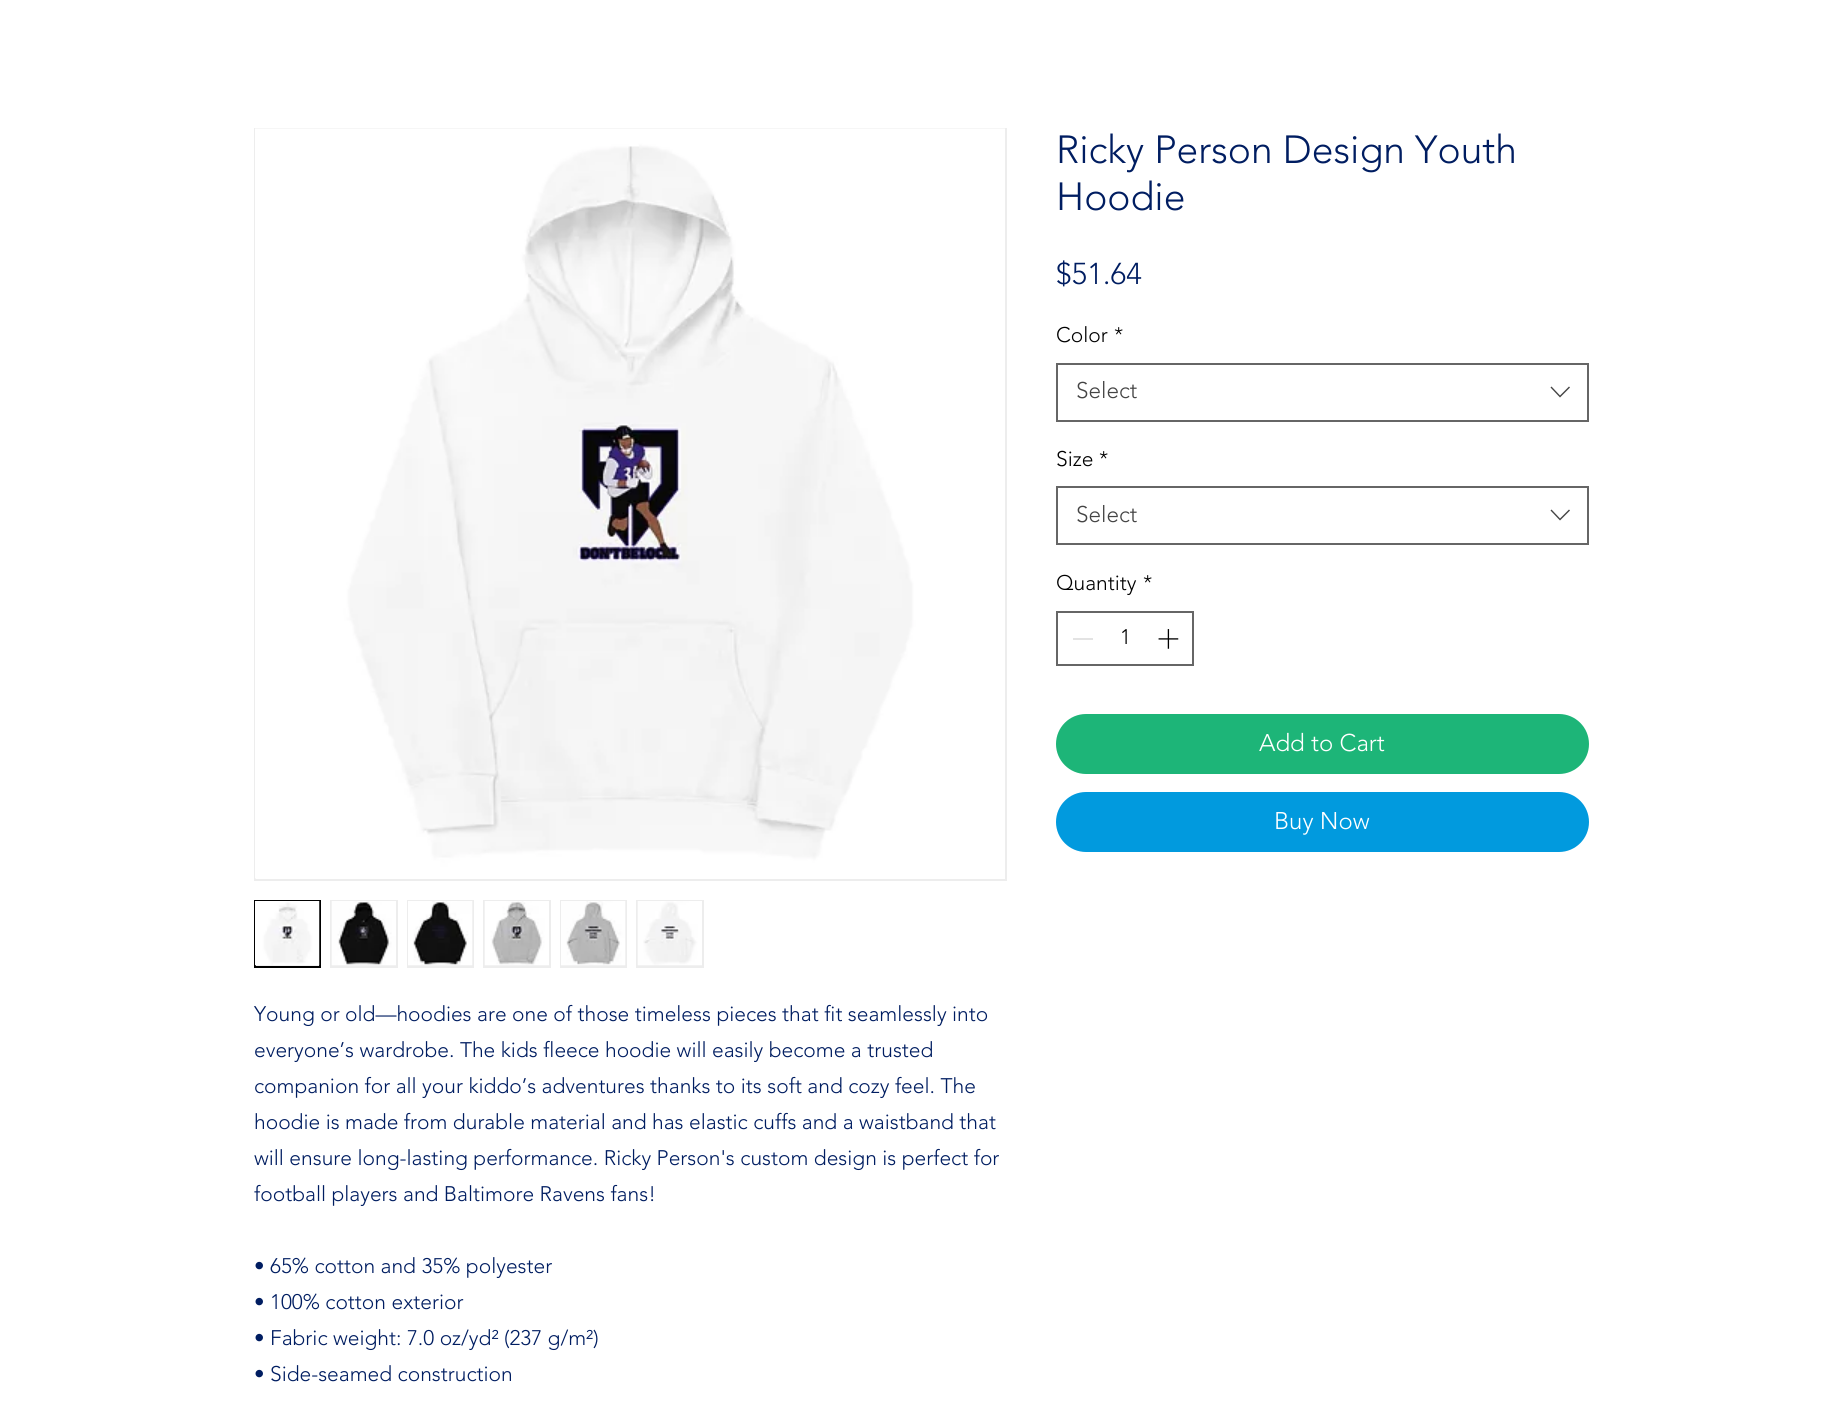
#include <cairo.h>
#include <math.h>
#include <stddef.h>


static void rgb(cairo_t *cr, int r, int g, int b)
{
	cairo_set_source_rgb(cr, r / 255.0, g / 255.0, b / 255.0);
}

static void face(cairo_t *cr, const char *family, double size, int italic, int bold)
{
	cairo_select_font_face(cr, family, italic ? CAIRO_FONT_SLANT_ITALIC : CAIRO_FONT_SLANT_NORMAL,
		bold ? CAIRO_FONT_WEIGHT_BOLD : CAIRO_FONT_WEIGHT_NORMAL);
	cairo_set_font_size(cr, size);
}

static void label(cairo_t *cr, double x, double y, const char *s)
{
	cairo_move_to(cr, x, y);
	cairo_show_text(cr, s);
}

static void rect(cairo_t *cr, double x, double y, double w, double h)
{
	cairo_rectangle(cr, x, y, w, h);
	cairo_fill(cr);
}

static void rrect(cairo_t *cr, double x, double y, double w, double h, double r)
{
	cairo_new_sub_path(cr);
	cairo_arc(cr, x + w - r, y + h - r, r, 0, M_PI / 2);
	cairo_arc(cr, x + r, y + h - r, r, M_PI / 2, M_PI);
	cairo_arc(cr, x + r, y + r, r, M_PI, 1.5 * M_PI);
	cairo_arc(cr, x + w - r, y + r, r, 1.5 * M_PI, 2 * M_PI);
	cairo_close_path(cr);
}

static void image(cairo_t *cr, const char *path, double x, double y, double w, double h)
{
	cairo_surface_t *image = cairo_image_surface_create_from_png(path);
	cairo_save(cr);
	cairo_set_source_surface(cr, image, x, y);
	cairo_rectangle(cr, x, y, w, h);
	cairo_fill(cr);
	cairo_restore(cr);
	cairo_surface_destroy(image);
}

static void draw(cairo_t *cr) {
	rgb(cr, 255, 255, 255);
	cairo_paint(cr);
	face(cr, "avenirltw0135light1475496 Light", 39, 0, 0);
	rgb(cr, 0, 29, 97);
	label(cr, 1056, 163, "Ricky Person Design Youth");
	label(cr, 1056, 210, "Hoodie");
	face(cr, "avenirltw0135light1475496 Light", 30, 0, 0);
	label(cr, 1056, 284, "$51.64");
	face(cr, "avenirltw0135light1475496 Light", 21, 0, 0);
	rgb(cr, 0, 0, 0);
	label(cr, 1056, 342, "Color");
	label(cr, 1114, 342, "*");
	cairo_rectangle(cr, 1057, 364, 531, 57);
	rgb(cr, 102, 102, 102);
	cairo_stroke(cr);
	face(cr, "avenirltw0135light1475496 Light", 22.5, 0, 0);
	rgb(cr, 68, 68, 68);
	label(cr, 1076, 398, "Select");
	cairo_set_fill_rule(cr, CAIRO_FILL_RULE_EVEN_ODD);
	cairo_new_path(cr);
	cairo_move_to(cr, 1569, 386.5);
	cairo_line_to(cr, 1570, 387.5);
	cairo_line_to(cr, 1560, 397.5);
	cairo_line_to(cr, 1550.5, 387.5);
	cairo_line_to(cr, 1551.5, 386.5);
	cairo_line_to(cr, 1560, 395.5);
	cairo_close_path(cr);
	cairo_fill(cr);
	face(cr, "avenirltw0135light1475496 Light", 21, 0, 0);
	rgb(cr, 0, 0, 0);
	label(cr, 1056, 466, "Size");
	label(cr, 1099, 466, "*");
	cairo_rectangle(cr, 1057, 487, 531, 57);
	rgb(cr, 102, 102, 102);
	cairo_stroke(cr);
	face(cr, "avenirltw0135light1475496 Light", 22.5, 0, 0);
	rgb(cr, 68, 68, 68);
	label(cr, 1076, 522, "Select");
	cairo_new_path(cr);
	cairo_move_to(cr, 1569, 509.5);
	cairo_line_to(cr, 1570, 510.5);
	cairo_line_to(cr, 1560, 520.5);
	cairo_line_to(cr, 1550.5, 510.5);
	cairo_line_to(cr, 1551.5, 509.5);
	cairo_line_to(cr, 1560, 518.5);
	cairo_close_path(cr);
	cairo_fill(cr);
	face(cr, "avenirltw0135light1475496 Light", 21, 0, 0);
	rgb(cr, 0, 0, 0);
	label(cr, 1056, 590, "Quantity");
	label(cr, 1143, 590, "*");
	cairo_rectangle(cr, 1057, 612, 136, 53);
	rgb(cr, 102, 102, 102);
	cairo_stroke(cr);
	rgb(cr, 227, 227, 227);
	rect(cr, 1073, 638, 20, 2);
	rgb(cr, 0, 0, 0);
	label(cr, 1120, 644, "1");
	image(cr, "image0.png", 1158, 629, 21, 20);
	rgb(cr, 29, 181, 120);
	rrect(cr, 1056, 714, 533, 60, 30);
	cairo_fill(cr);
	face(cr, "avenirltw0135light1475496 Light", 24, 0, 0);
	rgb(cr, 255, 255, 255);
	label(cr, 1259, 751, "Add to Cart");
	rgb(cr, 1, 154, 222);
	rrect(cr, 1056, 792, 533, 60, 30);
	cairo_fill(cr);
	rgb(cr, 255, 255, 255);
	label(cr, 1274, 829, "Buy Now");
	cairo_rectangle(cr, 255, 129, 751, 751);
	rgb(cr, 237, 237, 237);
	cairo_stroke(cr);
	image(cr, "image1.png", 255, 128, 750, 751);
	rect(cr, 256, 965, 63, 1);
	cairo_rectangle(cr, 255, 901, 65, 66);
	rgb(cr, 0, 0, 0);
	cairo_stroke(cr);
	image(cr, "image2.png", 255, 901, 65, 65);
	rgb(cr, 237, 237, 237);
	rect(cr, 330, 900, 68, 68);
	image(cr, "image3.png", 331, 901, 65, 65);
	rect(cr, 407, 900, 67, 68);
	image(cr, "image4.png", 408, 901, 65, 65);
	rect(cr, 483, 900, 68, 68);
	image(cr, "image5.png", 484, 901, 65, 65);
	rect(cr, 560, 900, 67, 68);
	image(cr, "image6.png", 561, 901, 65, 65);
	rect(cr, 636, 900, 68, 68);
	image(cr, "image7.png", 637, 901, 65, 65);
	face(cr, "avenirltw0135light1475496 Light", 21, 0, 0);
	rgb(cr, 0, 29, 97);
	label(cr, 254, 1021, "Young or old—hoodies are one of those timeless pieces that fit seamlessly into");
	label(cr, 254, 1057, "everyone’s wardrobe. The kids fleece hoodie will easily become a trusted");
	label(cr, 254, 1093, "companion for all your kiddo’s adventures thanks to its soft and cozy feel. The");
	label(cr, 254, 1129, "hoodie is made from durable material and has elastic cuffs and a waistband that");
	label(cr, 254, 1165, "will ensure long-lasting performance. Ricky Person's custom design is perfect for");
	label(cr, 254, 1201, "football players and Baltimore Ravens fans!");
	label(cr, 254, 1273, "• 65% cotton and 35% polyester");
	label(cr, 254, 1309, "• 100% cotton exterior");
	label(cr, 254, 1345, "• Fabric weight: 7.0 oz/yd² (237 g/m²)");
	label(cr, 254, 1381, "• Side-seamed construction");
}

int main(void) {
	cairo_surface_t *surface = cairo_image_surface_create(CAIRO_FORMAT_RGB24, 1841, 1406);
	cairo_t *cr = cairo_create(surface);
	cairo_font_options_t *options = cairo_font_options_create();
	cairo_font_options_set_hint_metrics(options, CAIRO_HINT_METRICS_OFF);
	cairo_font_options_set_hint_style(options, CAIRO_HINT_STYLE_NONE);
	cairo_set_font_options(cr, options);
	cairo_set_miter_limit(cr, 4);
	draw(cr);
	cairo_surface_write_to_png(surface, "render.png");
	cairo_font_options_destroy(options);
	cairo_destroy(cr);
	cairo_surface_destroy(surface);
	return 0;
}
